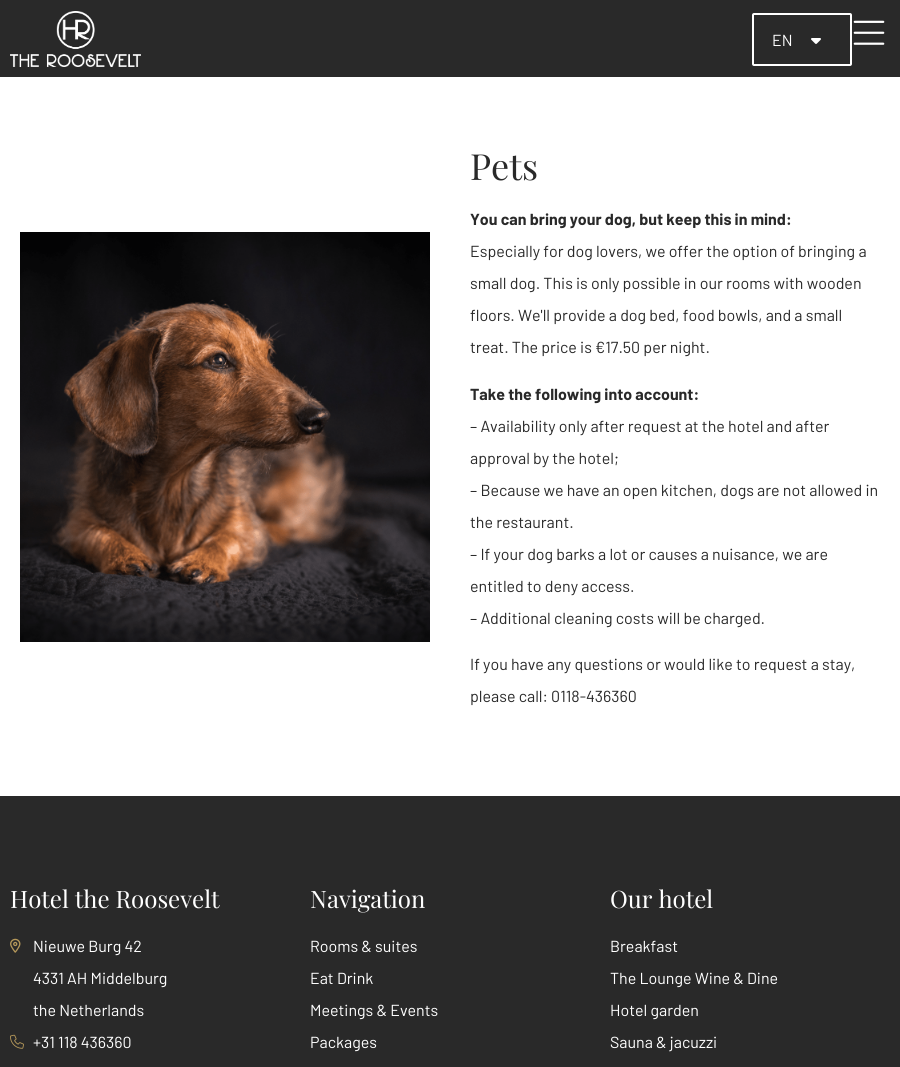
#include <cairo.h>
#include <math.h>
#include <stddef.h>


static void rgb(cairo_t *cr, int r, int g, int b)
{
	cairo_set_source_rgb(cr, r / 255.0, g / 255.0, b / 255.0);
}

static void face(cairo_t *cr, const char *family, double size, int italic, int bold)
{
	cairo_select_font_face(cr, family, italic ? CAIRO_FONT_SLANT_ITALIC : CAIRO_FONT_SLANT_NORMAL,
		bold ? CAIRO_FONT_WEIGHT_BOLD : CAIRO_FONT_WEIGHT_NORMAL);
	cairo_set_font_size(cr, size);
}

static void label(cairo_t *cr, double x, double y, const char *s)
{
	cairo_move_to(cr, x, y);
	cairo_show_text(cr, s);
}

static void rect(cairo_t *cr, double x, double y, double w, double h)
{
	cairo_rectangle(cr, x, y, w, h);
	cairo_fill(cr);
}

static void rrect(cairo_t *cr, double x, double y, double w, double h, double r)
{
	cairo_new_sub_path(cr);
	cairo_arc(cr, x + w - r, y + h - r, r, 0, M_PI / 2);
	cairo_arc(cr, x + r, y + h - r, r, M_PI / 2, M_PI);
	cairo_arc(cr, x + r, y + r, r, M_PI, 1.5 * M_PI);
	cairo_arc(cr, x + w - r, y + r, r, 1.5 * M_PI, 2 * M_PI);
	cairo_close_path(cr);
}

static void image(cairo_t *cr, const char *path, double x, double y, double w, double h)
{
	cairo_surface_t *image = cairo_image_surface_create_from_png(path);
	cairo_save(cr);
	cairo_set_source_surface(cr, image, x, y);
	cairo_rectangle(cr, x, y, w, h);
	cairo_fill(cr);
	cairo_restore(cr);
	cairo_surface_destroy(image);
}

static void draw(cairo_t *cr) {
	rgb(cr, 255, 255, 255);
	cairo_paint(cr);
	rgb(cr, 41, 41, 41);
	rect(cr, 0, 0, 900, 77);
	image(cr, "image0.png", 10, 11, 131, 56);
	rrect(cr, 753, 14, 98, 51, 1);
	rgb(cr, 255, 255, 255);
	cairo_stroke(cr);
	face(cr, "Barlow", 16, 0, 0);
	label(cr, 772, 46, "EN");
	image(cr, "image1.png", 811, 38, 10, 6);
	image(cr, "image2.png", 853, 20, 32, 25);
	image(cr, "image3.png", 20, 232, 410, 410);
	face(cr, "Playfair Display", 36, 0, 0);
	rgb(cr, 41, 41, 41);
	label(cr, 470, 180, "Pets");
	face(cr, "Barlow", 16, 0, 1);
	label(cr, 470, 225, "You can bring your dog, but keep this in mind:");
	face(cr, "Barlow", 16, 0, 0);
	label(cr, 470, 257, "Especially for dog lovers, we offer the option of bringing a");
	label(cr, 470, 289, "small dog. This is only possible in our rooms with wooden");
	label(cr, 470, 321, "floors. We'll provide a dog bed, food bowls, and a small");
	label(cr, 470, 353, "treat. The price is €17.50 per night.");
	face(cr, "Barlow", 16, 0, 1);
	label(cr, 470, 400, "Take the following into account:");
	face(cr, "Barlow", 16, 0, 0);
	label(cr, 470, 432, "– Availability only after request at the hotel and after");
	label(cr, 470, 464, "approval by the hotel;");
	label(cr, 470, 496, "– Because we have an open kitchen, dogs are not allowed in");
	label(cr, 470, 528, "the restaurant.");
	label(cr, 470, 560, "– If your dog barks a lot or causes a nuisance, we are");
	label(cr, 470, 592, "entitled to deny access.");
	label(cr, 470, 624, "– Additional cleaning costs will be charged.");
	label(cr, 470, 670, "If you have any questions or would like to request a stay,");
	label(cr, 470, 702, "please call: 0118-436360");
	rect(cr, 0, 796, 900, 271);
	face(cr, "Playfair Display", 24, 0, 0);
	rgb(cr, 255, 255, 255);
	label(cr, 10, 908, "Hotel the Roosevelt");
	image(cr, "image4.png", 10, 938, 11, 15);
	face(cr, "Barlow", 16, 0, 0);
	label(cr, 33, 952, "Nieuwe Burg 42");
	label(cr, 33, 984, "4331 AH Middelburg");
	label(cr, 33, 1016, "the Netherlands");
	image(cr, "image5.png", 10, 1034, 14, 15);
	label(cr, 33, 1048, "+31 118 436360");
	face(cr, "Playfair Display", 24, 0, 0);
	label(cr, 310, 908, "Navigation");
	face(cr, "Barlow", 16, 0, 0);
	label(cr, 310, 952, "Rooms & suites");
	label(cr, 310, 984, "Eat Drink");
	label(cr, 310, 1016, "Meetings & Events");
	label(cr, 310, 1048, "Packages");
	face(cr, "Playfair Display", 24, 0, 0);
	label(cr, 610, 908, "Our hotel");
	face(cr, "Barlow", 16, 0, 0);
	label(cr, 610, 952, "Breakfast");
	label(cr, 610, 984, "The Lounge Wine & Dine");
	label(cr, 610, 1016, "Hotel garden");
	label(cr, 610, 1048, "Sauna & jacuzzi");
}

int main(void) {
	cairo_surface_t *surface = cairo_image_surface_create(CAIRO_FORMAT_RGB24, 900, 1067);
	cairo_t *cr = cairo_create(surface);
	cairo_font_options_t *options = cairo_font_options_create();
	cairo_font_options_set_hint_metrics(options, CAIRO_HINT_METRICS_OFF);
	cairo_font_options_set_hint_style(options, CAIRO_HINT_STYLE_NONE);
	cairo_set_font_options(cr, options);
	cairo_set_miter_limit(cr, 4);
	draw(cr);
	cairo_surface_write_to_png(surface, "render.png");
	cairo_font_options_destroy(options);
	cairo_destroy(cr);
	cairo_surface_destroy(surface);
	return 0;
}
